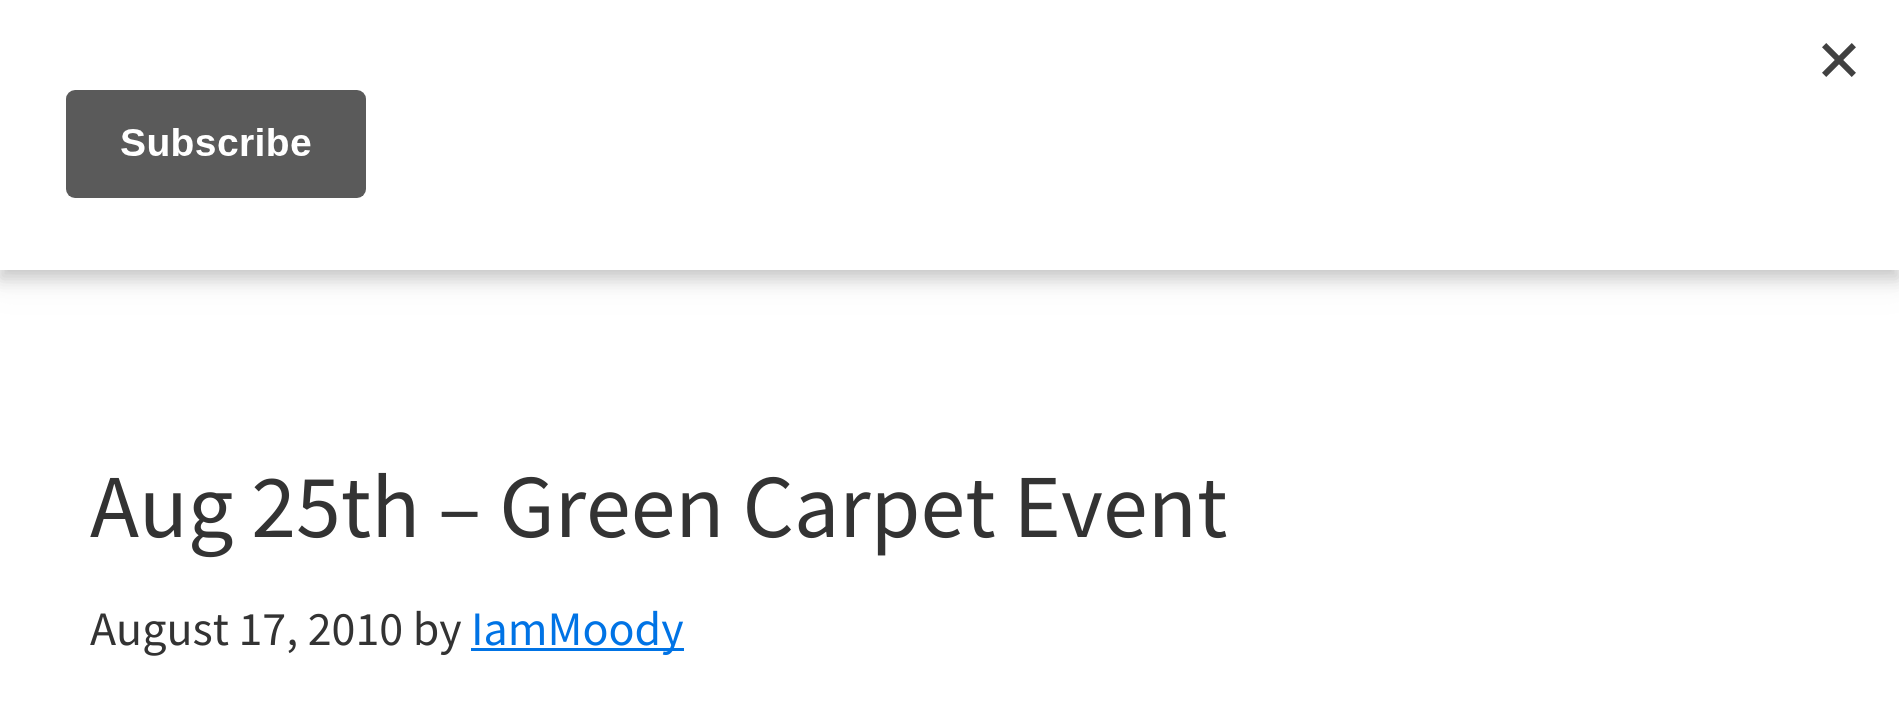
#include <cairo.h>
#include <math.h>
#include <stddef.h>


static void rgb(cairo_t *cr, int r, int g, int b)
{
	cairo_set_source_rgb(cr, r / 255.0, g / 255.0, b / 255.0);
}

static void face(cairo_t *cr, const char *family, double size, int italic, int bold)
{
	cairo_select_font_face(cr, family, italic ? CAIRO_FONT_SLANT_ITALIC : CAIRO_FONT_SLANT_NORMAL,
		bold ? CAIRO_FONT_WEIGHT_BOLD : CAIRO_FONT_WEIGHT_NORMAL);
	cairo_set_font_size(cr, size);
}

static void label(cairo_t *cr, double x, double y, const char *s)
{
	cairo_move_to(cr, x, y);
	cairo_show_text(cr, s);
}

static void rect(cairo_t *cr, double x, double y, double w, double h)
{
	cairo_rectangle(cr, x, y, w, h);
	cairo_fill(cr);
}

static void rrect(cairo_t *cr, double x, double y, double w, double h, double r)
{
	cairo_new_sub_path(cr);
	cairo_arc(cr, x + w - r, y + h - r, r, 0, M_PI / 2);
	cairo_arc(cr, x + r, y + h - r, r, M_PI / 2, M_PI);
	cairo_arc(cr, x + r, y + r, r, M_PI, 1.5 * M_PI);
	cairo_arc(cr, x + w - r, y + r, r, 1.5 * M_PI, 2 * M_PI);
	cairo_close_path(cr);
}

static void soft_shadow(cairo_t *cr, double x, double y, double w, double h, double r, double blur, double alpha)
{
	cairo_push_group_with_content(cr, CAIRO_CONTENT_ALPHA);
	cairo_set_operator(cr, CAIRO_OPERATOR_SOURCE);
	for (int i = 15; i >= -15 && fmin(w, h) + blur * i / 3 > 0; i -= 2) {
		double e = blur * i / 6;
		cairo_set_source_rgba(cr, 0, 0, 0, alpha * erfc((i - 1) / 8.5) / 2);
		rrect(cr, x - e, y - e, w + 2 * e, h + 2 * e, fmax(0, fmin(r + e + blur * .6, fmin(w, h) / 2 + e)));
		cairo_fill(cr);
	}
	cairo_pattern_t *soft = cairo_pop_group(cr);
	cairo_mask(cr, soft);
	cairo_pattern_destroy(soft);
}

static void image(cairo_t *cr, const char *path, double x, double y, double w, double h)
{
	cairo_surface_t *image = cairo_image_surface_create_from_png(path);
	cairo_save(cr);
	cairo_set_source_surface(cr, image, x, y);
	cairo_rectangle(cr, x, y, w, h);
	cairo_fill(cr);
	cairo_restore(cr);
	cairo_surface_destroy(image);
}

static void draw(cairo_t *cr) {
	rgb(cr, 255, 255, 255);
	cairo_paint(cr);
	rgb(cr, 0, 0, 0);
	soft_shadow(cr, 0, 9, 1899, 270, 0, 9, 0.2);
	soft_shadow(cr, 0, 0, 1899, 270, 0, 30, 0.05);
	rgb(cr, 255, 255, 255);
	rect(cr, 0, 0, 1899, 270);
	image(cr, "image0.png", 66, 43, 1790, 155);
	face(cr, "Source Sans Pro", 90, 0, 0);
	rgb(cr, 51, 51, 51);
	label(cr, 90, 537, "Aug 25th – Green Carpet Event");
	face(cr, "Source Sans Pro", 48, 0, 0);
	label(cr, 90, 645, "August 17, 2010 by");
	rgb(cr, 0, 115, 229);
	rect(cr, 471, 648, 213, 3);
	label(cr, 471, 645, "IamMoody");
}

int main(void) {
	cairo_surface_t *surface = cairo_image_surface_create(CAIRO_FORMAT_RGB24, 1899, 712);
	cairo_t *cr = cairo_create(surface);
	cairo_font_options_t *options = cairo_font_options_create();
	cairo_font_options_set_hint_metrics(options, CAIRO_HINT_METRICS_OFF);
	cairo_font_options_set_hint_style(options, CAIRO_HINT_STYLE_NONE);
	cairo_set_font_options(cr, options);
	cairo_set_miter_limit(cr, 4);
	draw(cr);
	cairo_surface_write_to_png(surface, "render.png");
	cairo_font_options_destroy(options);
	cairo_destroy(cr);
	cairo_surface_destroy(surface);
	return 0;
}
